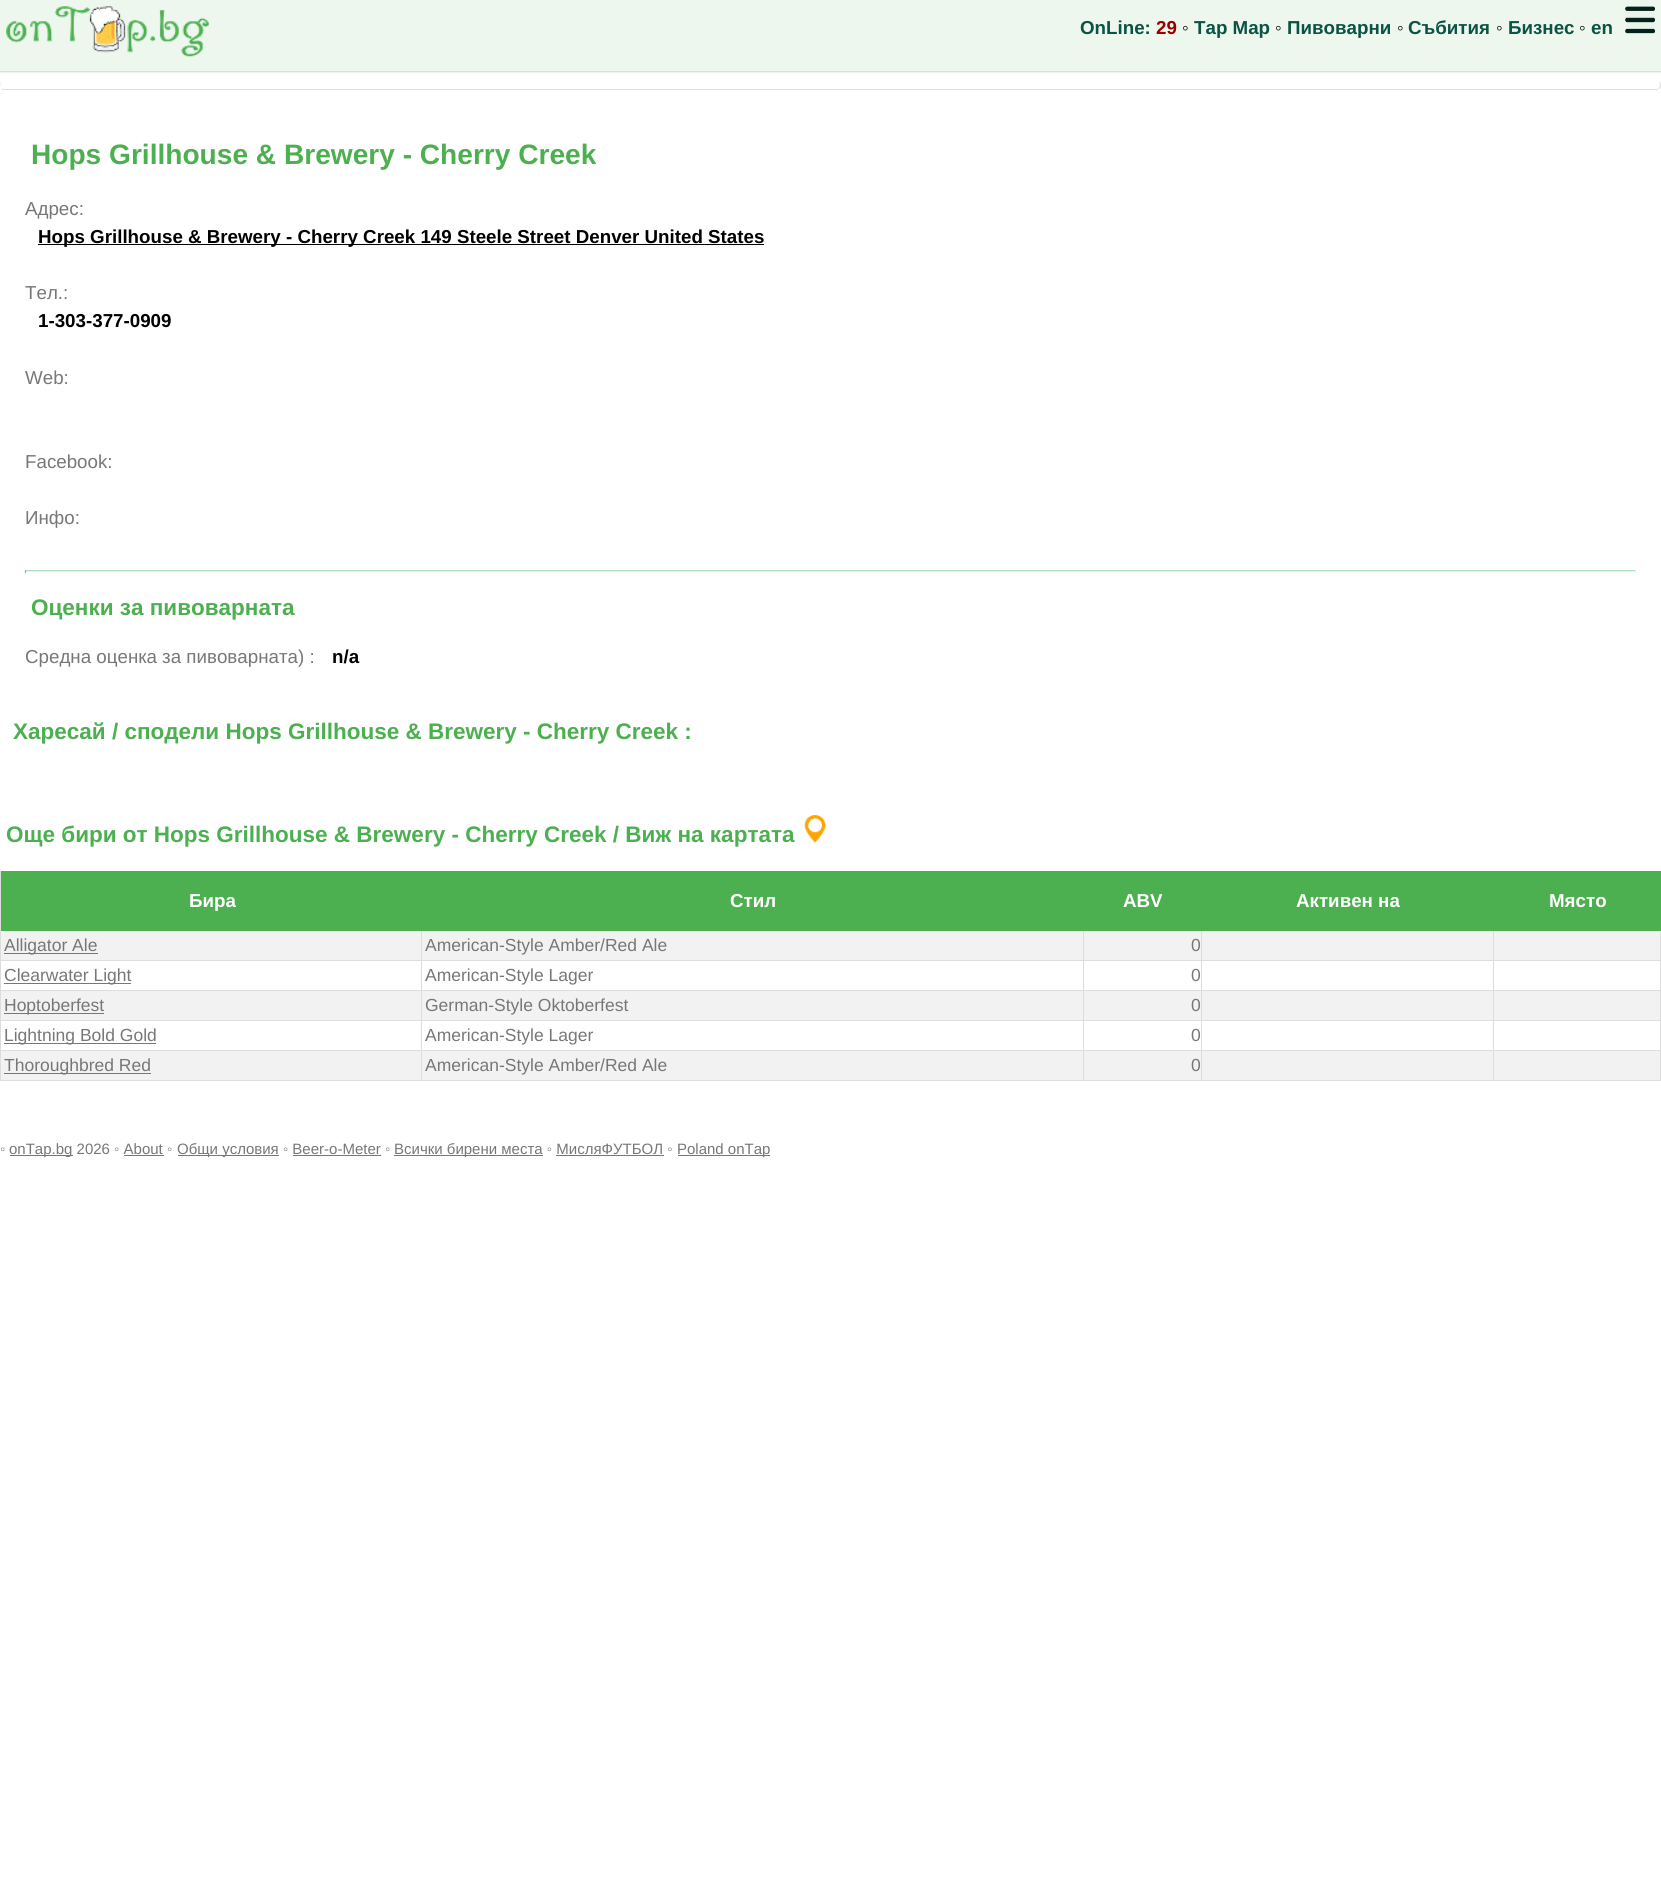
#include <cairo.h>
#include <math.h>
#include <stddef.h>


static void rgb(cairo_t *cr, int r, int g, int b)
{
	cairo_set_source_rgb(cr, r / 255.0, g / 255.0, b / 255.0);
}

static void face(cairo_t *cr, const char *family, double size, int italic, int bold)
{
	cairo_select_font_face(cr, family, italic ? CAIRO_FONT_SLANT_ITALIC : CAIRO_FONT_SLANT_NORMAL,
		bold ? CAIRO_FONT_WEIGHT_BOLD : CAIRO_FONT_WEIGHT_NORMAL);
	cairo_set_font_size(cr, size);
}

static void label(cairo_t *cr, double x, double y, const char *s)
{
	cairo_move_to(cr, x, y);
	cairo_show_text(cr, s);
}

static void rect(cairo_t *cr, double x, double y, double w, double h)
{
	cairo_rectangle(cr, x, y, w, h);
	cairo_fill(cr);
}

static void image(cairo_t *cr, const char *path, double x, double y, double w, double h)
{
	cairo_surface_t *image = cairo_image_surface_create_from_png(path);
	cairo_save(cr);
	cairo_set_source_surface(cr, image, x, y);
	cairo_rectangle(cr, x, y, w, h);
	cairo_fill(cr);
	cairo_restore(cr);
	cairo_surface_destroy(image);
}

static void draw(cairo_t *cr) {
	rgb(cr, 255, 255, 255);
	cairo_paint(cr);
	rgb(cr, 237, 247, 238);
	rect(cr, 0, 0, 1661, 73);
	rgb(cr, 221, 221, 221);
	rect(cr, 0, 71, 1661, 1);
	image(cr, "image0.png", 6, 6, 203, 51);
	face(cr, "Liberation Sans", 18.75, 0, 1);
	rgb(cr, 11, 83, 69);
	label(cr, 1080, 34, "OnLine:");
	rgb(cr, 153, 0, 0);
	label(cr, 1156, 34, "29");
	face(cr, "Liberation Sans", 18.75, 0, 0);
	rgb(cr, 0, 0, 0);
	label(cr, 1182, 34, "◦");
	face(cr, "Liberation Sans", 18.75, 0, 1);
	rgb(cr, 11, 83, 69);
	label(cr, 1194, 34, "Tap Map");
	face(cr, "Liberation Sans", 18.75, 0, 0);
	rgb(cr, 0, 0, 0);
	label(cr, 1275, 34, "◦");
	face(cr, "Liberation Sans", 18.75, 0, 1);
	rgb(cr, 11, 83, 69);
	label(cr, 1287, 34, "Пивоварни");
	face(cr, "Liberation Sans", 18.75, 0, 0);
	rgb(cr, 0, 0, 0);
	label(cr, 1397, 34, "◦");
	face(cr, "Liberation Sans", 18.75, 0, 1);
	rgb(cr, 11, 83, 69);
	label(cr, 1408, 34, "Събития");
	face(cr, "Liberation Sans", 18.75, 0, 0);
	rgb(cr, 0, 0, 0);
	label(cr, 1496, 34, "◦");
	face(cr, "Liberation Sans", 18.75, 0, 1);
	rgb(cr, 11, 83, 69);
	label(cr, 1508, 34, "Бизнес");
	face(cr, "Liberation Sans", 18.75, 0, 0);
	rgb(cr, 0, 0, 0);
	label(cr, 1579, 34, "◦");
	face(cr, "Liberation Sans", 18.75, 0, 1);
	rgb(cr, 11, 83, 69);
	label(cr, 1591, 34, "en");
	image(cr, "image1.png", 1625, 6, 30, 28);
	rgb(cr, 221, 221, 221);
	cairo_set_fill_rule(cr, CAIRO_FILL_RULE_EVEN_ODD);
	cairo_new_path(cr);
	cairo_move_to(cr, 4, 81);
	cairo_line_to(cr, 1657, 81);
	cairo_curve_to(cr, 1661, 81, 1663, 87, 1659, 89);
	cairo_line_to(cr, 1657, 90);
	cairo_line_to(cr, 4, 90);
	cairo_curve_to(cr, -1, 90, -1, 81, 4, 81);
	cairo_close_path(cr);
	cairo_move_to(cr, 4, 81);
	cairo_line_to(cr, 1657, 81);
	cairo_curve_to(cr, 1661, 81, 1661, 89, 1657, 89);
	cairo_line_to(cr, 4, 89);
	cairo_curve_to(cr, -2, 89, -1, 81, 4, 81);
	cairo_close_path(cr);
	cairo_fill(cr);
	face(cr, "Liberation Sans", 28.1, 0, 1);
	rgb(cr, 76, 175, 80);
	label(cr, 31, 164, "Hops Grillhouse & Brewery - Cherry Creek");
	face(cr, "Liberation Sans", 18.75, 0, 0);
	rgb(cr, 119, 119, 119);
	label(cr, 25, 215, "Адрес:");
	rgb(cr, 0, 0, 0);
	rect(cr, 38, 244, 726, 1);
	face(cr, "Liberation Sans", 18.75, 0, 1);
	label(cr, 38, 243, "Hops Grillhouse & Brewery - Cherry Creek 149 Steele Street Denver United States");
	face(cr, "Liberation Sans", 18.75, 0, 0);
	rgb(cr, 119, 119, 119);
	label(cr, 25, 299, "Тел.:");
	face(cr, "Liberation Sans", 18.75, 0, 1);
	rgb(cr, 0, 0, 0);
	label(cr, 38, 327, "1-303-377-0909");
	face(cr, "Liberation Sans", 18.75, 0, 0);
	rgb(cr, 119, 119, 119);
	label(cr, 25, 384, "Web:");
	label(cr, 25, 468, "Facebook:");
	label(cr, 25, 524, "Инфо:");
	rgb(cr, 169, 223, 191);
	rect(cr, 25, 570, 1611, 1);
	rgb(cr, 238, 238, 238);
	rect(cr, 1635, 570, 1, 3);
	rect(cr, 25, 571, 1611, 1);
	rgb(cr, 159, 159, 159);
	rect(cr, 25, 570, 1, 3);
	face(cr, "Liberation Sans", 22.5, 0, 1);
	rgb(cr, 76, 175, 80);
	label(cr, 31, 615, "Оценки за пивоварната");
	face(cr, "Liberation Sans", 18.75, 0, 0);
	rgb(cr, 119, 119, 119);
	label(cr, 25, 663, "Средна оценка за пивоварната) :");
	face(cr, "Liberation Sans", 18.75, 0, 1);
	rgb(cr, 0, 0, 0);
	label(cr, 332, 663, "n/a");
	face(cr, "Liberation Sans", 22.5, 0, 1);
	rgb(cr, 76, 175, 80);
	label(cr, 13, 739, "Харесай / сподели Hops Grillhouse & Brewery - Cherry Creek :");
	label(cr, 6, 842, "Още бири от Hops Grillhouse & Brewery - Cherry Creek / Виж на картата");
	image(cr, "image2.png", 804, 815, 22, 28);
	rgb(cr, 242, 242, 242);
	rect(cr, 1, 931, 1659, 29);
	rgb(cr, 221, 221, 221);
	rect(cr, 1493, 960, 168, 1);
	rect(cr, 1493, 990, 168, 1);
	rgb(cr, 242, 242, 242);
	rect(cr, 1, 991, 1659, 29);
	rgb(cr, 221, 221, 221);
	rect(cr, 1493, 1020, 168, 1);
	rect(cr, 1493, 1050, 168, 1);
	rgb(cr, 242, 242, 242);
	rect(cr, 1, 1051, 1659, 29);
	rgb(cr, 221, 221, 221);
	rect(cr, 1660, 1050, 1, 31);
	rect(cr, 1493, 1080, 168, 1);
	rect(cr, 1493, 1050, 1, 31);
	rect(cr, 1201, 1050, 293, 1);
	rect(cr, 1493, 1020, 1, 31);
	rect(cr, 1201, 1020, 293, 1);
	rect(cr, 1493, 990, 1, 31);
	rect(cr, 1201, 990, 293, 1);
	rect(cr, 1493, 960, 1, 31);
	rect(cr, 1201, 960, 293, 1);
	rect(cr, 1201, 1080, 293, 1);
	rect(cr, 1201, 1050, 1, 31);
	rect(cr, 1083, 1050, 120, 1);
	rect(cr, 1201, 1020, 1, 31);
	rect(cr, 1083, 1020, 120, 1);
	rect(cr, 1201, 990, 1, 31);
	rect(cr, 1083, 990, 120, 1);
	rect(cr, 1201, 960, 1, 31);
	rect(cr, 1083, 960, 120, 1);
	rect(cr, 1083, 1080, 120, 1);
	rect(cr, 1083, 1050, 1, 31);
	rect(cr, 421, 1050, 663, 1);
	rect(cr, 1083, 1020, 1, 31);
	rect(cr, 421, 1020, 663, 1);
	rect(cr, 1083, 990, 1, 31);
	rect(cr, 421, 990, 663, 1);
	rect(cr, 1083, 960, 1, 31);
	rect(cr, 421, 960, 663, 1);
	rect(cr, 421, 1080, 663, 1);
	rect(cr, 421, 1050, 1, 31);
	rect(cr, 0, 1050, 423, 1);
	rect(cr, 421, 1020, 1, 31);
	rect(cr, 0, 1020, 423, 1);
	rect(cr, 421, 990, 1, 31);
	rect(cr, 0, 990, 423, 1);
	rect(cr, 421, 960, 1, 31);
	rect(cr, 0, 960, 423, 1);
	rect(cr, 421, 930, 1, 31);
	rect(cr, 1083, 930, 1, 31);
	rect(cr, 1201, 930, 1, 31);
	rect(cr, 1493, 930, 1, 31);
	rect(cr, 1660, 1020, 1, 31);
	rect(cr, 1660, 990, 1, 31);
	rect(cr, 1660, 930, 1, 61);
	rgb(cr, 76, 175, 80);
	rect(cr, 1, 871, 1660, 60);
	face(cr, "Liberation Sans", 18.75, 0, 1);
	rgb(cr, 255, 255, 255);
	label(cr, 189, 907, "Бира");
	label(cr, 730, 907, "Стил");
	label(cr, 1123, 907, "ABV");
	label(cr, 1296, 907, "Активен на");
	label(cr, 1549, 907, "Място");
	rgb(cr, 119, 119, 119);
	rect(cr, 4, 953, 94, 1);
	face(cr, "Liberation Sans", 17.5, 0, 0);
	label(cr, 4, 951, "Alligator Ale");
	label(cr, 425, 951, "American-Style Amber/Red Ale");
	label(cr, 1191, 951, "0");
	rgb(cr, 221, 221, 221);
	rect(cr, 0, 1080, 423, 1);
	rect(cr, 0, 1050, 1, 31);
	rect(cr, 0, 1020, 1, 31);
	rect(cr, 0, 990, 1, 31);
	rect(cr, 0, 871, 1, 120);
	rgb(cr, 119, 119, 119);
	rect(cr, 4, 983, 127, 1);
	label(cr, 4, 981, "Clearwater Light");
	label(cr, 425, 981, "American-Style Lager");
	label(cr, 1191, 981, "0");
	rect(cr, 4, 1013, 100, 1);
	label(cr, 4, 1011, "Hoptoberfest");
	label(cr, 425, 1011, "German-Style Oktoberfest");
	label(cr, 1191, 1011, "0");
	rect(cr, 4, 1043, 152, 1);
	label(cr, 4, 1041, "Lightning Bold Gold");
	label(cr, 425, 1041, "American-Style Lager");
	label(cr, 1191, 1041, "0");
	rect(cr, 4, 1073, 147, 1);
	label(cr, 4, 1071, "Thoroughbred Red");
	label(cr, 425, 1071, "American-Style Amber/Red Ale");
	label(cr, 1191, 1071, "0");
	face(cr, "Liberation Sans", 15, 0, 0);
	label(cr, 0, 1154, "◦");
	rect(cr, 10, 1155, 63, 1);
	label(cr, 9, 1154, "onTap.bg 2026 ◦ About ◦");
	rect(cr, 178, 1155, 101, 1);
	label(cr, 177, 1154, "Общи условия ◦ Beer-o-Meter ◦");
	rect(cr, 394, 1155, 149, 1);
	label(cr, 394, 1154, "Всички бирени места ◦ МисляФУТБОЛ ◦");
	rect(cr, 678, 1155, 92, 1);
	label(cr, 677, 1154, "Poland onTap");
	rect(cr, 124, 1155, 40, 1);
	rect(cr, 293, 1155, 88, 1);
	rect(cr, 556, 1155, 108, 1);
}

int main(void) {
	cairo_surface_t *surface = cairo_image_surface_create(CAIRO_FORMAT_RGB24, 1661, 1903);
	cairo_t *cr = cairo_create(surface);
	cairo_font_options_t *options = cairo_font_options_create();
	cairo_font_options_set_hint_metrics(options, CAIRO_HINT_METRICS_OFF);
	cairo_font_options_set_hint_style(options, CAIRO_HINT_STYLE_NONE);
	cairo_set_font_options(cr, options);
	cairo_set_miter_limit(cr, 4);
	draw(cr);
	cairo_surface_write_to_png(surface, "render.png");
	cairo_font_options_destroy(options);
	cairo_destroy(cr);
	cairo_surface_destroy(surface);
	return 0;
}
